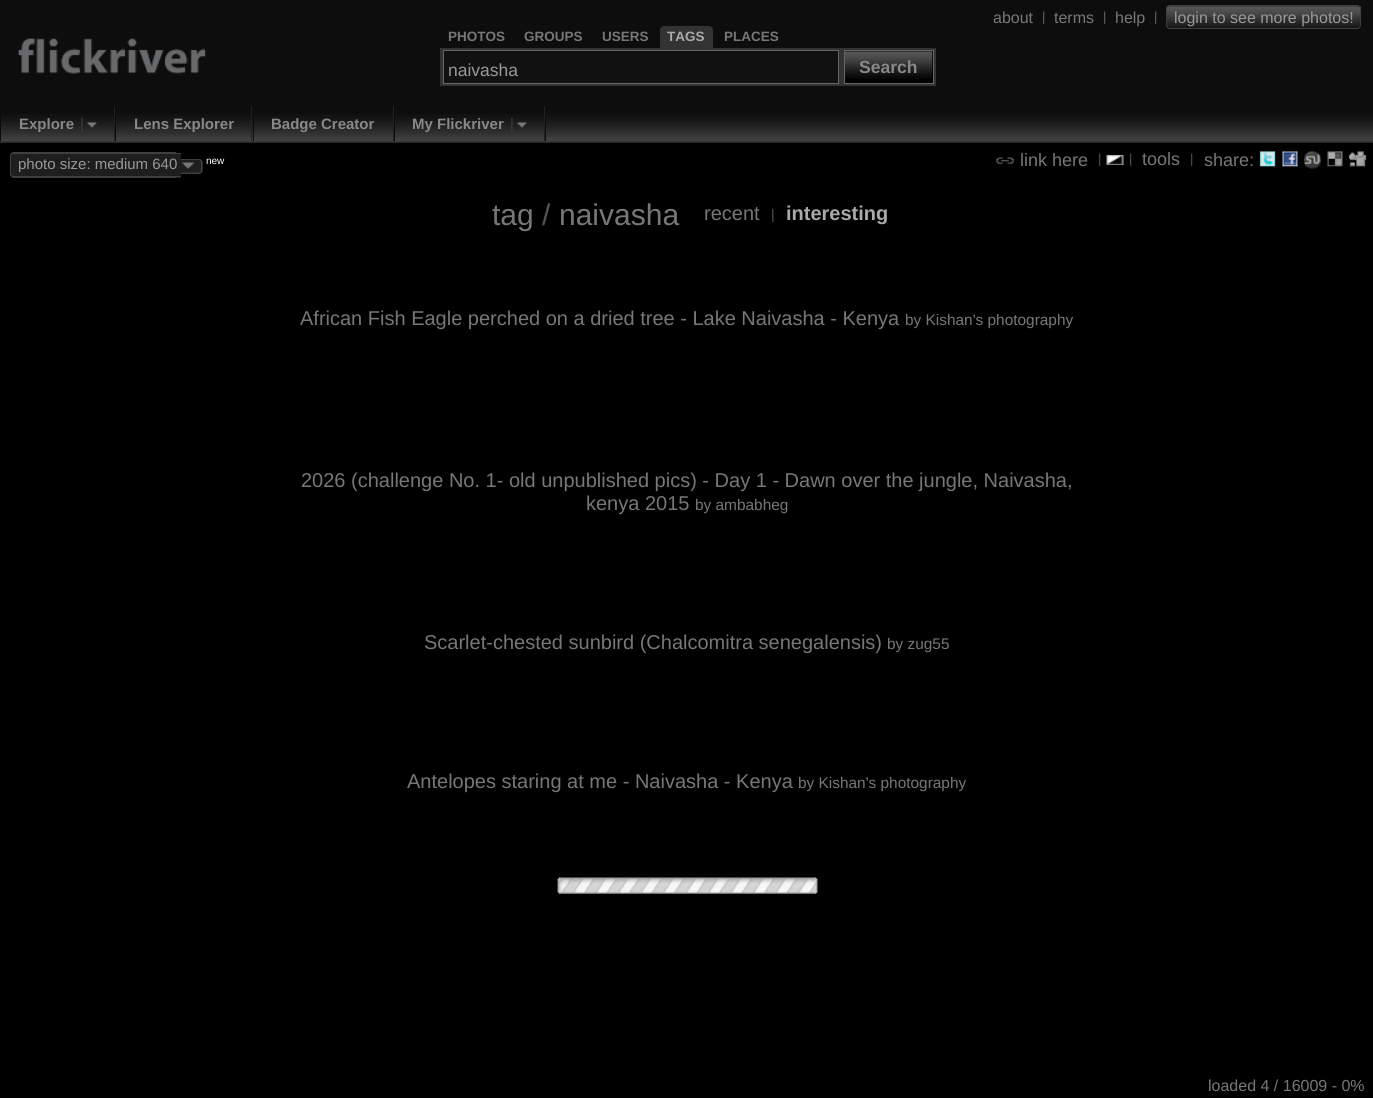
#include <cairo.h>
#include <math.h>
#include <stddef.h>


static void rgb(cairo_t *cr, int r, int g, int b)
{
	cairo_set_source_rgb(cr, r / 255.0, g / 255.0, b / 255.0);
}

static void face(cairo_t *cr, const char *family, double size, int italic, int bold)
{
	cairo_select_font_face(cr, family, italic ? CAIRO_FONT_SLANT_ITALIC : CAIRO_FONT_SLANT_NORMAL,
		bold ? CAIRO_FONT_WEIGHT_BOLD : CAIRO_FONT_WEIGHT_NORMAL);
	cairo_set_font_size(cr, size);
}

static void label(cairo_t *cr, double x, double y, const char *s)
{
	cairo_move_to(cr, x, y);
	cairo_show_text(cr, s);
}

static void rect(cairo_t *cr, double x, double y, double w, double h)
{
	cairo_rectangle(cr, x, y, w, h);
	cairo_fill(cr);
}

static void rrect(cairo_t *cr, double x, double y, double w, double h, double r)
{
	cairo_new_sub_path(cr);
	cairo_arc(cr, x + w - r, y + h - r, r, 0, M_PI / 2);
	cairo_arc(cr, x + r, y + h - r, r, M_PI / 2, M_PI);
	cairo_arc(cr, x + r, y + r, r, M_PI, 1.5 * M_PI);
	cairo_arc(cr, x + w - r, y + r, r, 1.5 * M_PI, 2 * M_PI);
	cairo_close_path(cr);
}

static void image(cairo_t *cr, const char *path, double x, double y, double w, double h)
{
	cairo_surface_t *image = cairo_image_surface_create_from_png(path);
	cairo_save(cr);
	cairo_set_source_surface(cr, image, x, y);
	cairo_rectangle(cr, x, y, w, h);
	cairo_fill(cr);
	cairo_restore(cr);
	cairo_surface_destroy(image);
}

static void draw(cairo_t *cr) {
	rgb(cr, 0, 0, 0);
	cairo_paint(cr);
	rgb(cr, 13, 13, 13);
	rect(cr, 0, 0, 1373, 143);
	face(cr, "Liberation Sans", 16, 0, 0);
	rgb(cr, 119, 119, 119);
	label(cr, 993, 23, "about");
	face(cr, "Liberation Sans", 13, 0, 0);
	rgb(cr, 102, 102, 102);
	label(cr, 1042, 21, "|");
	label(cr, 1103, 21, "|");
	face(cr, "Liberation Sans", 16, 0, 0);
	rgb(cr, 119, 119, 119);
	label(cr, 1115, 23, "help");
	face(cr, "Liberation Sans", 13, 0, 0);
	rgb(cr, 102, 102, 102);
	label(cr, 1154, 21, "|");
	image(cr, "image0.png", 1166, 6, 196, 23);
	face(cr, "Liberation Sans", 16, 0, 0);
	rgb(cr, 119, 119, 119);
	label(cr, 1054, 23, "terms");
	rrect(cr, 1166.5, 5.5, 194, 23, 3.5);
	rgb(cr, 63, 63, 63);
	cairo_set_line_width(cr, 1);
	cairo_stroke(cr);
	rgb(cr, 153, 153, 153);
	label(cr, 1174, 23, "login to see more photos!");
	image(cr, "image1.png", 18, 38, 188, 36);
	face(cr, "Liberation Sans", 13.5, 0, 1);
	rgb(cr, 119, 119, 119);
	label(cr, 448, 41, "PHOTOS");
	label(cr, 524, 41, "GROUPS");
	label(cr, 602, 41, "USERS");
	rgb(cr, 51, 51, 51);
	cairo_new_path(cr);
	cairo_move_to(cr, 664, 26);
	cairo_line_to(cr, 709, 26);
	cairo_curve_to(cr, 711, 26, 713, 28, 713, 30);
	cairo_line_to(cr, 713, 48);
	cairo_line_to(cr, 660, 48);
	cairo_line_to(cr, 660, 30);
	cairo_curve_to(cr, 660, 28, 662, 26, 664, 26);
	cairo_close_path(cr);
	cairo_fill(cr);
	rgb(cr, 170, 170, 170);
	label(cr, 667, 41, "TAGS");
	rgb(cr, 119, 119, 119);
	label(cr, 724, 41, "PLACES");
	rgb(cr, 51, 51, 51);
	rect(cr, 440, 48, 496, 38);
	rgb(cr, 17, 17, 17);
	cairo_rectangle(cr, 443.5, 50.5, 395, 33);
	cairo_fill_preserve(cr);
	rgb(cr, 102, 102, 102);
	cairo_stroke(cr);
	face(cr, "Liberation Sans", 17.5, 0, 0);
	rgb(cr, 153, 153, 153);
	label(cr, 448, 76, "naivasha");
	rgb(cr, 0, 0, 0);
	cairo_rectangle(cr, 844.5, 50.5, 89, 33);
	cairo_fill_preserve(cr);
	rgb(cr, 102, 102, 102);
	cairo_stroke(cr);
	image(cr, "image2.png", 845, 51, 88, 28);
	face(cr, "Liberation Sans", 17.5, 0, 1);
	rgb(cr, 136, 136, 136);
	label(cr, 859, 73, "Search");
	image(cr, "image3.png", 0, 114, 1373, 29);
	rgb(cr, 51, 51, 51);
	rect(cr, 0, 141, 1373, 1);
	rgb(cr, 11, 11, 11);
	rect(cr, 545, 106, 1, 35);
	rgb(cr, 33, 33, 33);
	rect(cr, 114, 106, 1, 35);
	rgb(cr, 11, 11, 11);
	rect(cr, 0, 106, 1, 35);
	face(cr, "Liberation Sans", 15, 0, 1);
	rgb(cr, 136, 136, 136);
	label(cr, 19, 129, "Explore");
	image(cr, "image4.png", 81, 117, 16, 16);
	rgb(cr, 33, 33, 33);
	rect(cr, 251, 106, 1, 35);
	rgb(cr, 11, 11, 11);
	rect(cr, 115, 106, 1, 35);
	rgb(cr, 136, 136, 136);
	label(cr, 134, 129, "Lens Explorer");
	rgb(cr, 33, 33, 33);
	rect(cr, 393, 106, 1, 35);
	rgb(cr, 11, 11, 11);
	rect(cr, 253, 106, 1, 35);
	rgb(cr, 136, 136, 136);
	label(cr, 271, 129, "Badge Creator");
	rgb(cr, 33, 33, 33);
	rect(cr, 544, 106, 1, 35);
	rgb(cr, 11, 11, 11);
	rect(cr, 394, 106, 1, 35);
	rgb(cr, 136, 136, 136);
	label(cr, 412, 129, "My Flickriver");
	image(cr, "image4.png", 511, 117, 16, 16);
	rgb(cr, 30, 30, 30);
	cairo_new_path(cr);
	cairo_move_to(cr, 14, 153);
	cairo_line_to(cr, 176, 153);
	cairo_line_to(cr, 176, 178);
	cairo_line_to(cr, 14, 178);
	cairo_curve_to(cr, 12, 178, 10, 176, 10, 174);
	cairo_line_to(cr, 10, 157);
	cairo_curve_to(cr, 10, 155, 12, 153, 14, 153);
	cairo_close_path(cr);
	cairo_fill(cr);
	rgb(cr, 63, 63, 63);
	cairo_set_fill_rule(cr, CAIRO_FILL_RULE_EVEN_ODD);
	cairo_new_path(cr);
	cairo_move_to(cr, 14, 152);
	cairo_line_to(cr, 176, 152);
	cairo_line_to(cr, 176, 178);
	cairo_line_to(cr, 14, 178);
	cairo_curve_to(cr, 12, 178, 10, 176, 10, 174);
	cairo_line_to(cr, 10, 156);
	cairo_curve_to(cr, 10, 154, 12, 152, 14, 152);
	cairo_close_path(cr);
	cairo_move_to(cr, 14, 154);
	cairo_line_to(cr, 176, 154);
	cairo_line_to(cr, 176, 176);
	cairo_line_to(cr, 14, 176);
	cairo_curve_to(cr, 12, 176, 11, 175, 11, 174);
	cairo_line_to(cr, 11, 156);
	cairo_curve_to(cr, 11, 155, 12, 154, 14, 154);
	cairo_close_path(cr);
	cairo_fill(cr);
	rgb(cr, 30, 30, 30);
	rect(cr, 176, 153, 5, 25);
	face(cr, "Liberation Sans", 15, 0, 0);
	rgb(cr, 153, 153, 153);
	label(cr, 18, 169, "photo size: medium 640");
	rgb(cr, 63, 63, 63);
	rect(cr, 176, 153, 5, 1);
	rect(cr, 176, 176, 5, 1);
	rgb(cr, 30, 30, 30);
	cairo_new_path(cr);
	cairo_move_to(cr, 181, 159);
	cairo_line_to(cr, 199, 159);
	cairo_curve_to(cr, 201, 159, 203, 161, 203, 163);
	cairo_line_to(cr, 203, 170);
	cairo_curve_to(cr, 203, 172, 201, 174, 199, 174);
	cairo_line_to(cr, 181, 174);
	cairo_close_path(cr);
	cairo_fill(cr);
	rgb(cr, 63, 63, 63);
	cairo_new_path(cr);
	cairo_move_to(cr, 181, 159);
	cairo_line_to(cr, 193, 159);
	cairo_curve_to(cr, 201.5, 159, 202.5, 158, 202.5, 166);
	cairo_curve_to(cr, 202.5, 174.5, 201.5, 174, 193, 174);
	cairo_line_to(cr, 181, 174);
	cairo_close_path(cr);
	cairo_move_to(cr, 181, 160);
	cairo_line_to(cr, 193, 160);
	cairo_curve_to(cr, 200.5, 160, 201, 158.5, 201, 166);
	cairo_curve_to(cr, 201, 174, 200.5, 172.5, 193, 172.5);
	cairo_line_to(cr, 181, 172.5);
	cairo_close_path(cr);
	cairo_fill(cr);
	image(cr, "image5.png", 182, 162, 12, 7);
	face(cr, "Liberation Sans", 10, 0, 0);
	rgb(cr, 255, 255, 255);
	label(cr, 206, 164, "new");
	image(cr, "image6.png", 996, 157, 18, 7);
	face(cr, "Liberation Sans", 18, 0, 0);
	rgb(cr, 119, 119, 119);
	label(cr, 1020, 166, "link here");
	face(cr, "Liberation Sans", 13, 0, 0);
	rgb(cr, 85, 85, 85);
	label(cr, 1098, 163, "|");
	image(cr, "image7.png", 1106, 155, 18, 10);
	label(cr, 1129, 163, "|");
	face(cr, "Liberation Sans", 18, 0, 0);
	rgb(cr, 119, 119, 119);
	label(cr, 1142, 165, "tools");
	face(cr, "Liberation Sans", 13, 0, 0);
	rgb(cr, 85, 85, 85);
	label(cr, 1190, 163, "|");
	face(cr, "Liberation Sans", 18, 0, 0);
	rgb(cr, 119, 119, 119);
	label(cr, 1204, 166, "share:");
	image(cr, "image8.png", 1259, 151, 17, 16);
	image(cr, "image9.png", 1282, 151, 16, 16);
	image(cr, "image10.png", 1303, 151, 18, 18);
	image(cr, "image11.png", 1327, 151, 16, 16);
	image(cr, "image12.png", 1348, 151, 19, 16);
	face(cr, "Liberation Sans", 30, 0, 0);
	label(cr, 492, 225, "tag");
	rgb(cr, 85, 85, 85);
	label(cr, 542, 225, "/");
	rgb(cr, 119, 119, 119);
	label(cr, 559, 225, "naivasha");
	face(cr, "Liberation Sans", 20, 0, 0);
	label(cr, 704, 220, "recent");
	face(cr, "Liberation Sans", 14, 0, 0);
	rgb(cr, 85, 85, 85);
	label(cr, 771, 219, "|");
	face(cr, "Liberation Sans", 20, 0, 1);
	rgb(cr, 170, 170, 170);
	label(cr, 786, 220, "interesting");
	face(cr, "Liberation Sans", 20, 0, 0);
	rgb(cr, 119, 119, 119);
	label(cr, 300, 325, "African Fish Eagle perched on a dried tree - Lake Naivasha - Kenya");
	face(cr, "Liberation Sans", 15.4, 0, 0);
	label(cr, 905, 325, "by Kishan's photography");
	face(cr, "Liberation Sans", 20, 0, 0);
	label(cr, 301, 487, "2026 (challenge No. 1- old unpublished pics) - Day 1 - Dawn over the jungle, Naivasha,");
	label(cr, 586, 510, "kenya 2015");
	face(cr, "Liberation Sans", 15.4, 0, 0);
	label(cr, 695, 510, "by ambabheg");
	face(cr, "Liberation Sans", 20, 0, 0);
	label(cr, 424, 649, "Scarlet-chested sunbird (Chalcomitra senegalensis)");
	face(cr, "Liberation Sans", 15.4, 0, 0);
	label(cr, 887, 649, "by zug55");
	face(cr, "Liberation Sans", 20, 0, 0);
	label(cr, 407, 788, "Antelopes staring at me - Naivasha - Kenya");
	face(cr, "Liberation Sans", 15.4, 0, 0);
	label(cr, 798, 788, "by Kishan's photography");
	image(cr, "image13.png", 557, 877, 261, 17);
	face(cr, "Liberation Sans", 16, 0, 0);
	label(cr, 1208, 1091, "loaded 4 / 16009 - 0%");
}

int main(void) {
	cairo_surface_t *surface = cairo_image_surface_create(CAIRO_FORMAT_RGB24, 1373, 1098);
	cairo_t *cr = cairo_create(surface);
	cairo_font_options_t *options = cairo_font_options_create();
	cairo_font_options_set_hint_metrics(options, CAIRO_HINT_METRICS_OFF);
	cairo_font_options_set_hint_style(options, CAIRO_HINT_STYLE_NONE);
	cairo_set_font_options(cr, options);
	cairo_set_miter_limit(cr, 4);
	draw(cr);
	cairo_surface_write_to_png(surface, "render.png");
	cairo_font_options_destroy(options);
	cairo_destroy(cr);
	cairo_surface_destroy(surface);
	return 0;
}
